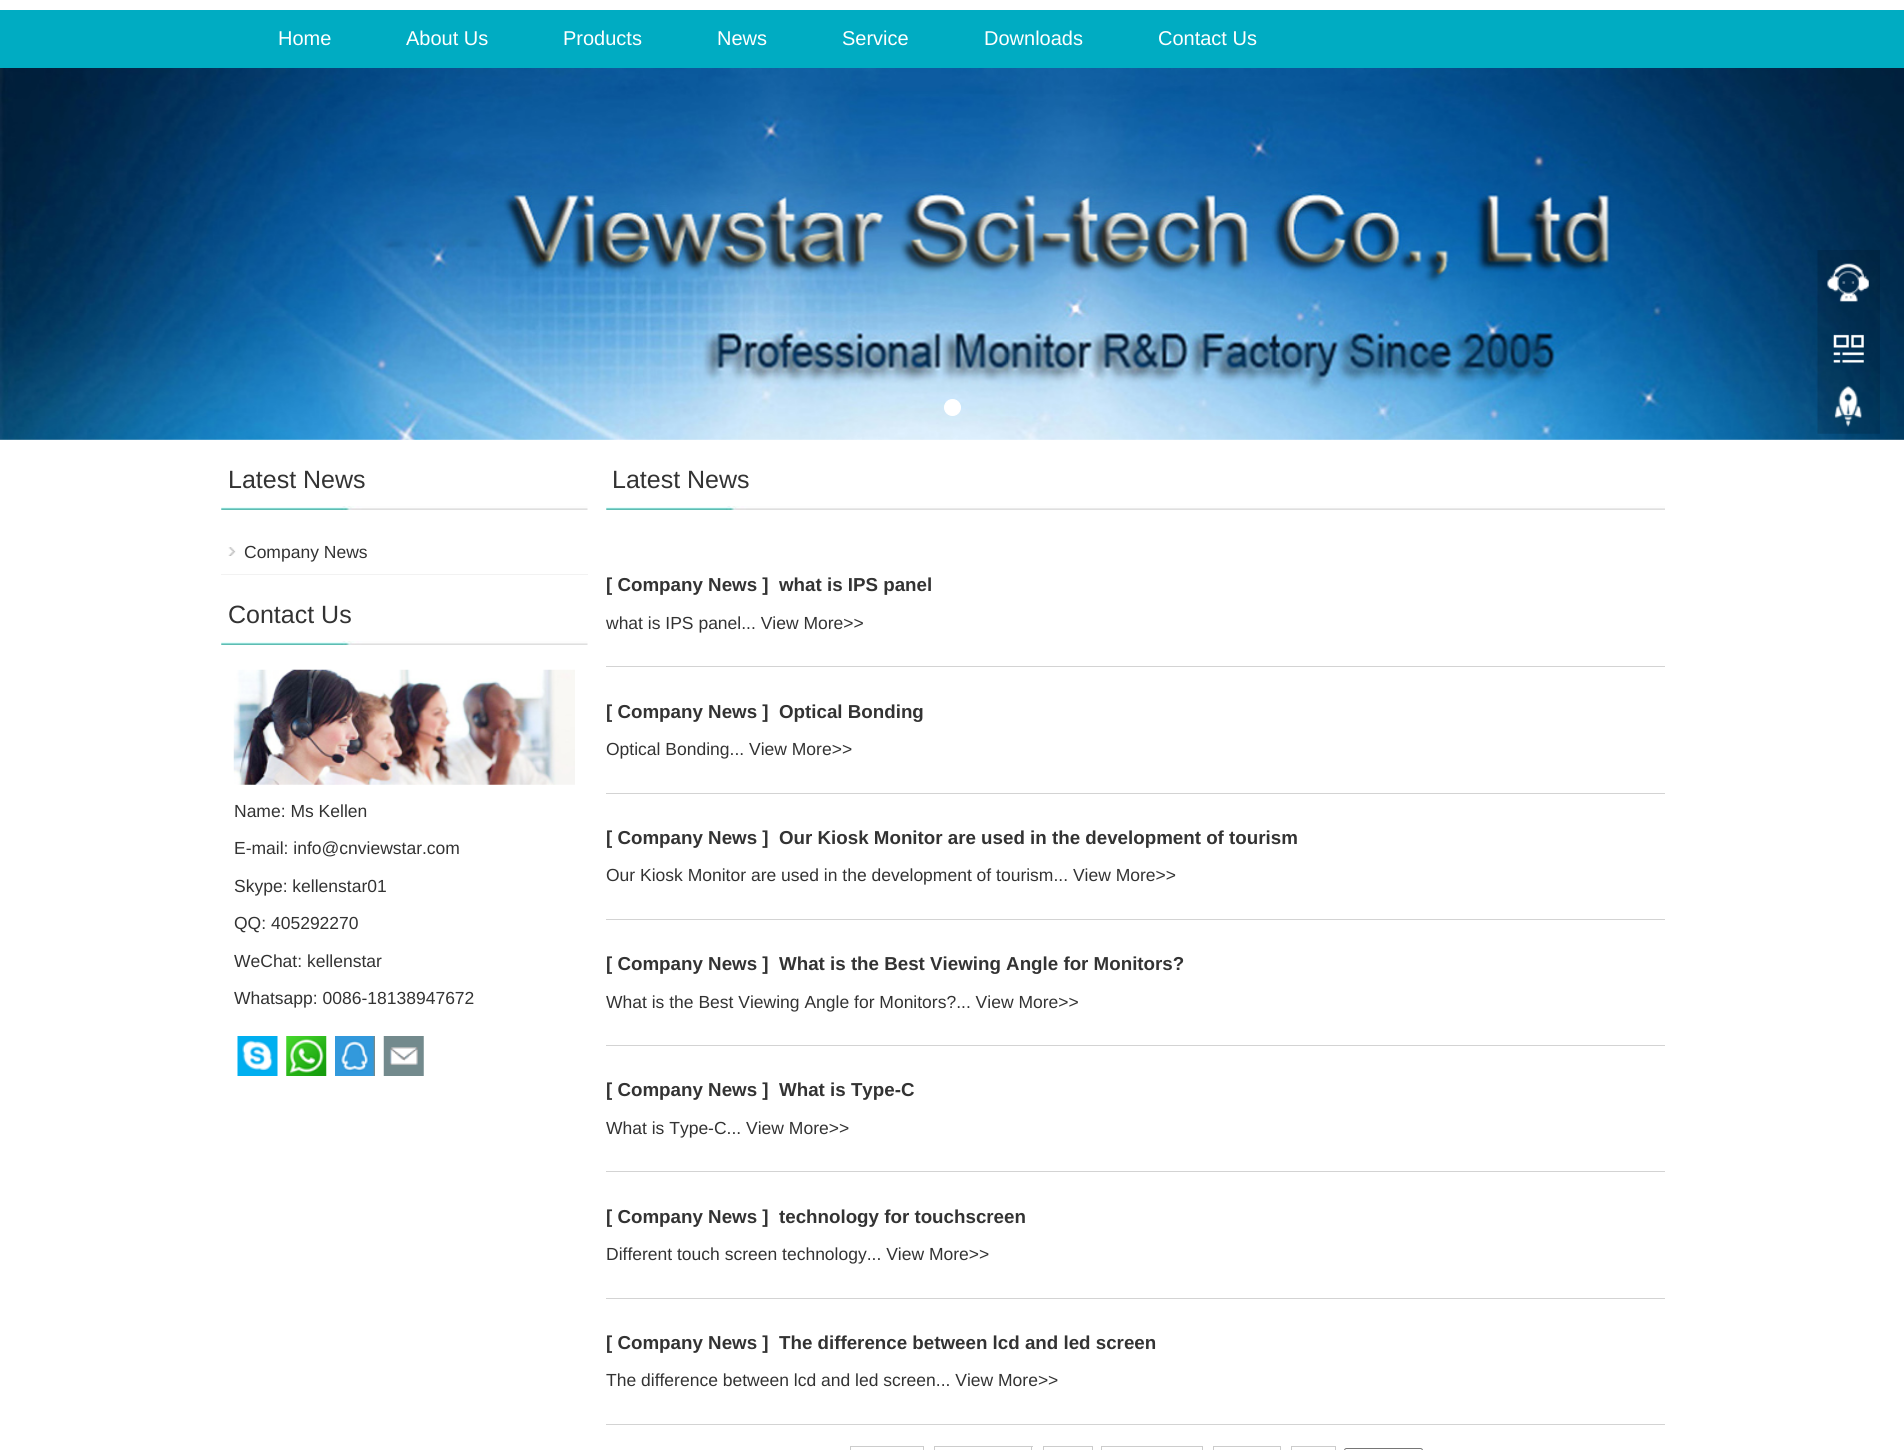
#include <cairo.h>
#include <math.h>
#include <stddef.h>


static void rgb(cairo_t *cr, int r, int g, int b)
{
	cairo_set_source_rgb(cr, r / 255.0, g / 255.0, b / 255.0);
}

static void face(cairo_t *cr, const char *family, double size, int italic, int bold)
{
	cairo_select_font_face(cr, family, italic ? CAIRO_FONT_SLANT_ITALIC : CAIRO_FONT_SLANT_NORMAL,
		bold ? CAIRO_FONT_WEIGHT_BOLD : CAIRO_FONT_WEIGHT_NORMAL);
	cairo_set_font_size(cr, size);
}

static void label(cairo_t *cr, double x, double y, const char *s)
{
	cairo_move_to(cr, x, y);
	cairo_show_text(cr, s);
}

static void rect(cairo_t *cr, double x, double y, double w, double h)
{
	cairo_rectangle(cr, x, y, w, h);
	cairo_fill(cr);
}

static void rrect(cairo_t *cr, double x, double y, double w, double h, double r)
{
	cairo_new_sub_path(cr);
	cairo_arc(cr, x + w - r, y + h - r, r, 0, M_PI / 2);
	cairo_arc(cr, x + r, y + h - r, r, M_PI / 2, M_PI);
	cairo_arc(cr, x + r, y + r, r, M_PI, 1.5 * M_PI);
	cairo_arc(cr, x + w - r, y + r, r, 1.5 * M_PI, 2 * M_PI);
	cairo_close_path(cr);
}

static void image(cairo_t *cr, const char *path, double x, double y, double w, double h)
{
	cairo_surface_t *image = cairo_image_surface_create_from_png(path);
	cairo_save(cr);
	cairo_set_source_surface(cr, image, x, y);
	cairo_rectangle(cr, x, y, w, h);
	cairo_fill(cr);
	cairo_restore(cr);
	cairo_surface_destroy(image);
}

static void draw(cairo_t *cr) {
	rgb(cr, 255, 255, 255);
	cairo_paint(cr);
	rgb(cr, 0, 172, 194);
	rect(cr, 0, 10, 1904, 58);
	face(cr, "Liberation Sans", 20, 0, 0);
	rgb(cr, 255, 255, 255);
	label(cr, 278, 45, "Home");
	label(cr, 406, 45, "About Us");
	label(cr, 563, 45, "Products");
	label(cr, 717, 45, "News");
	label(cr, 842, 45, "Service");
	label(cr, 984, 45, "Downloads");
	label(cr, 1158, 45, "Contact Us");
	image(cr, "image0.png", 0, 68, 1904, 372);
	cairo_arc(cr, 952.5, 407.5, 8, 0, 2 * M_PI);
	cairo_fill_preserve(cr);
	cairo_set_line_width(cr, 1);
	cairo_stroke(cr);
	image(cr, "image1.png", 1817, 250, 63, 184);
	image(cr, "image2.png", 221, 506, 367, 4);
	face(cr, "Liberation Sans", 25, 0, 0);
	rgb(cr, 51, 51, 51);
	label(cr, 228, 488, "Latest News");
	image(cr, "image3.png", 228, 547, 8, 9);
	rgb(cr, 242, 242, 242);
	rect(cr, 221, 574, 367, 1);
	face(cr, "Liberation Sans", 17.5, 0, 0);
	rgb(cr, 51, 51, 51);
	label(cr, 244, 558, "Company News");
	image(cr, "image4.png", 221, 641, 367, 4);
	face(cr, "Liberation Sans", 25, 0, 0);
	label(cr, 228, 623, "Contact Us");
	image(cr, "image5.png", 233, 669, 342, 116);
	face(cr, "Liberation Sans", 17.5, 0, 0);
	label(cr, 234, 817, "Name: Ms Kellen");
	label(cr, 234, 854, "E-mail: info@cnviewstar.com");
	label(cr, 234, 892, "Skype: kellenstar01");
	label(cr, 234, 929, "QQ: 405292270");
	label(cr, 234, 967, "WeChat: kellenstar");
	label(cr, 234, 1004, "Whatsapp: 0086-18138947672");
	image(cr, "image6.png", 237, 1036, 41, 40);
	image(cr, "image7.png", 286, 1036, 41, 40);
	image(cr, "image8.png", 335, 1036, 40, 40);
	image(cr, "image9.png", 383, 1036, 41, 40);
	image(cr, "image10.png", 606, 506, 1059, 4);
	face(cr, "Liberation Sans", 25, 0, 0);
	label(cr, 612, 488, "Latest News");
	rgb(cr, 211, 211, 211);
	rect(cr, 606, 666, 1059, 1);
	face(cr, "Liberation Sans", 18.75, 0, 1);
	rgb(cr, 51, 51, 51);
	label(cr, 606, 591, "[ Company News ]");
	label(cr, 779, 591, "what is IPS panel");
	face(cr, "Liberation Sans", 17.5, 0, 0);
	label(cr, 606, 629, "what is IPS panel... View More>>");
	rgb(cr, 211, 211, 211);
	rect(cr, 606, 793, 1059, 1);
	face(cr, "Liberation Sans", 18.75, 0, 1);
	rgb(cr, 51, 51, 51);
	label(cr, 606, 718, "[ Company News ]");
	label(cr, 779, 718, "Optical Bonding");
	face(cr, "Liberation Sans", 17.5, 0, 0);
	label(cr, 606, 755, "Optical Bonding... View More>>");
	rgb(cr, 211, 211, 211);
	rect(cr, 606, 919, 1059, 1);
	face(cr, "Liberation Sans", 18.75, 0, 1);
	rgb(cr, 51, 51, 51);
	label(cr, 606, 844, "[ Company News ]");
	label(cr, 779, 844, "Our Kiosk Monitor are used in the development of tourism");
	face(cr, "Liberation Sans", 17.5, 0, 0);
	label(cr, 606, 881, "Our Kiosk Monitor are used in the development of tourism... View More>>");
	rgb(cr, 211, 211, 211);
	rect(cr, 606, 1045, 1059, 1);
	face(cr, "Liberation Sans", 18.75, 0, 1);
	rgb(cr, 51, 51, 51);
	label(cr, 606, 970, "[ Company News ]");
	label(cr, 779, 970, "What is the Best Viewing Angle for Monitors?");
	face(cr, "Liberation Sans", 17.5, 0, 0);
	label(cr, 606, 1008, "What is the Best Viewing Angle for Monitors?... View More>>");
	rgb(cr, 211, 211, 211);
	rect(cr, 606, 1171, 1059, 1);
	face(cr, "Liberation Sans", 18.75, 0, 1);
	rgb(cr, 51, 51, 51);
	label(cr, 606, 1096, "[ Company News ]");
	label(cr, 779, 1096, "What is Type-C");
	face(cr, "Liberation Sans", 17.5, 0, 0);
	label(cr, 606, 1134, "What is Type-C... View More>>");
	rgb(cr, 211, 211, 211);
	rect(cr, 606, 1298, 1059, 1);
	face(cr, "Liberation Sans", 18.75, 0, 1);
	rgb(cr, 51, 51, 51);
	label(cr, 606, 1223, "[ Company News ]");
	label(cr, 779, 1223, "technology for touchscreen");
	face(cr, "Liberation Sans", 17.5, 0, 0);
	label(cr, 606, 1260, "Different touch screen technology... View More>>");
	rgb(cr, 211, 211, 211);
	rect(cr, 606, 1424, 1059, 1);
	face(cr, "Liberation Sans", 18.75, 0, 1);
	rgb(cr, 51, 51, 51);
	label(cr, 606, 1349, "[ Company News ]");
	label(cr, 779, 1349, "The difference between lcd and led screen");
	face(cr, "Liberation Sans", 17.5, 0, 0);
	label(cr, 606, 1386, "The difference between lcd and led screen... View More>>");
	rgb(cr, 204, 204, 204);
	rect(cr, 850, 1446, 74, 1);
	rect(cr, 850, 1446, 1, 4);
	rect(cr, 923, 1446, 1, 4);
	rect(cr, 934, 1446, 99, 1);
	rect(cr, 934, 1446, 1, 4);
	rect(cr, 1031, 1446, 1, 4);
	cairo_rectangle(cr, 1043.5, 1446.5, 49, 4);
	cairo_stroke(cr);
	cairo_rectangle(cr, 1101.5, 1446.5, 101, 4);
	cairo_stroke(cr);
	cairo_rectangle(cr, 1213.5, 1446.5, 67, 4);
	cairo_stroke(cr);
	cairo_rectangle(cr, 1291.5, 1446.5, 44, 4);
	cairo_stroke(cr);
	rrect(cr, 1344.5, 1448.5, 78, 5, 2);
	rgb(cr, 118, 118, 118);
	cairo_stroke(cr);
}

int main(void) {
	cairo_surface_t *surface = cairo_image_surface_create(CAIRO_FORMAT_RGB24, 1904, 1450);
	cairo_t *cr = cairo_create(surface);
	cairo_font_options_t *options = cairo_font_options_create();
	cairo_font_options_set_hint_metrics(options, CAIRO_HINT_METRICS_OFF);
	cairo_font_options_set_hint_style(options, CAIRO_HINT_STYLE_NONE);
	cairo_set_font_options(cr, options);
	cairo_set_miter_limit(cr, 4);
	draw(cr);
	cairo_surface_write_to_png(surface, "render.png");
	cairo_font_options_destroy(options);
	cairo_destroy(cr);
	cairo_surface_destroy(surface);
	return 0;
}
